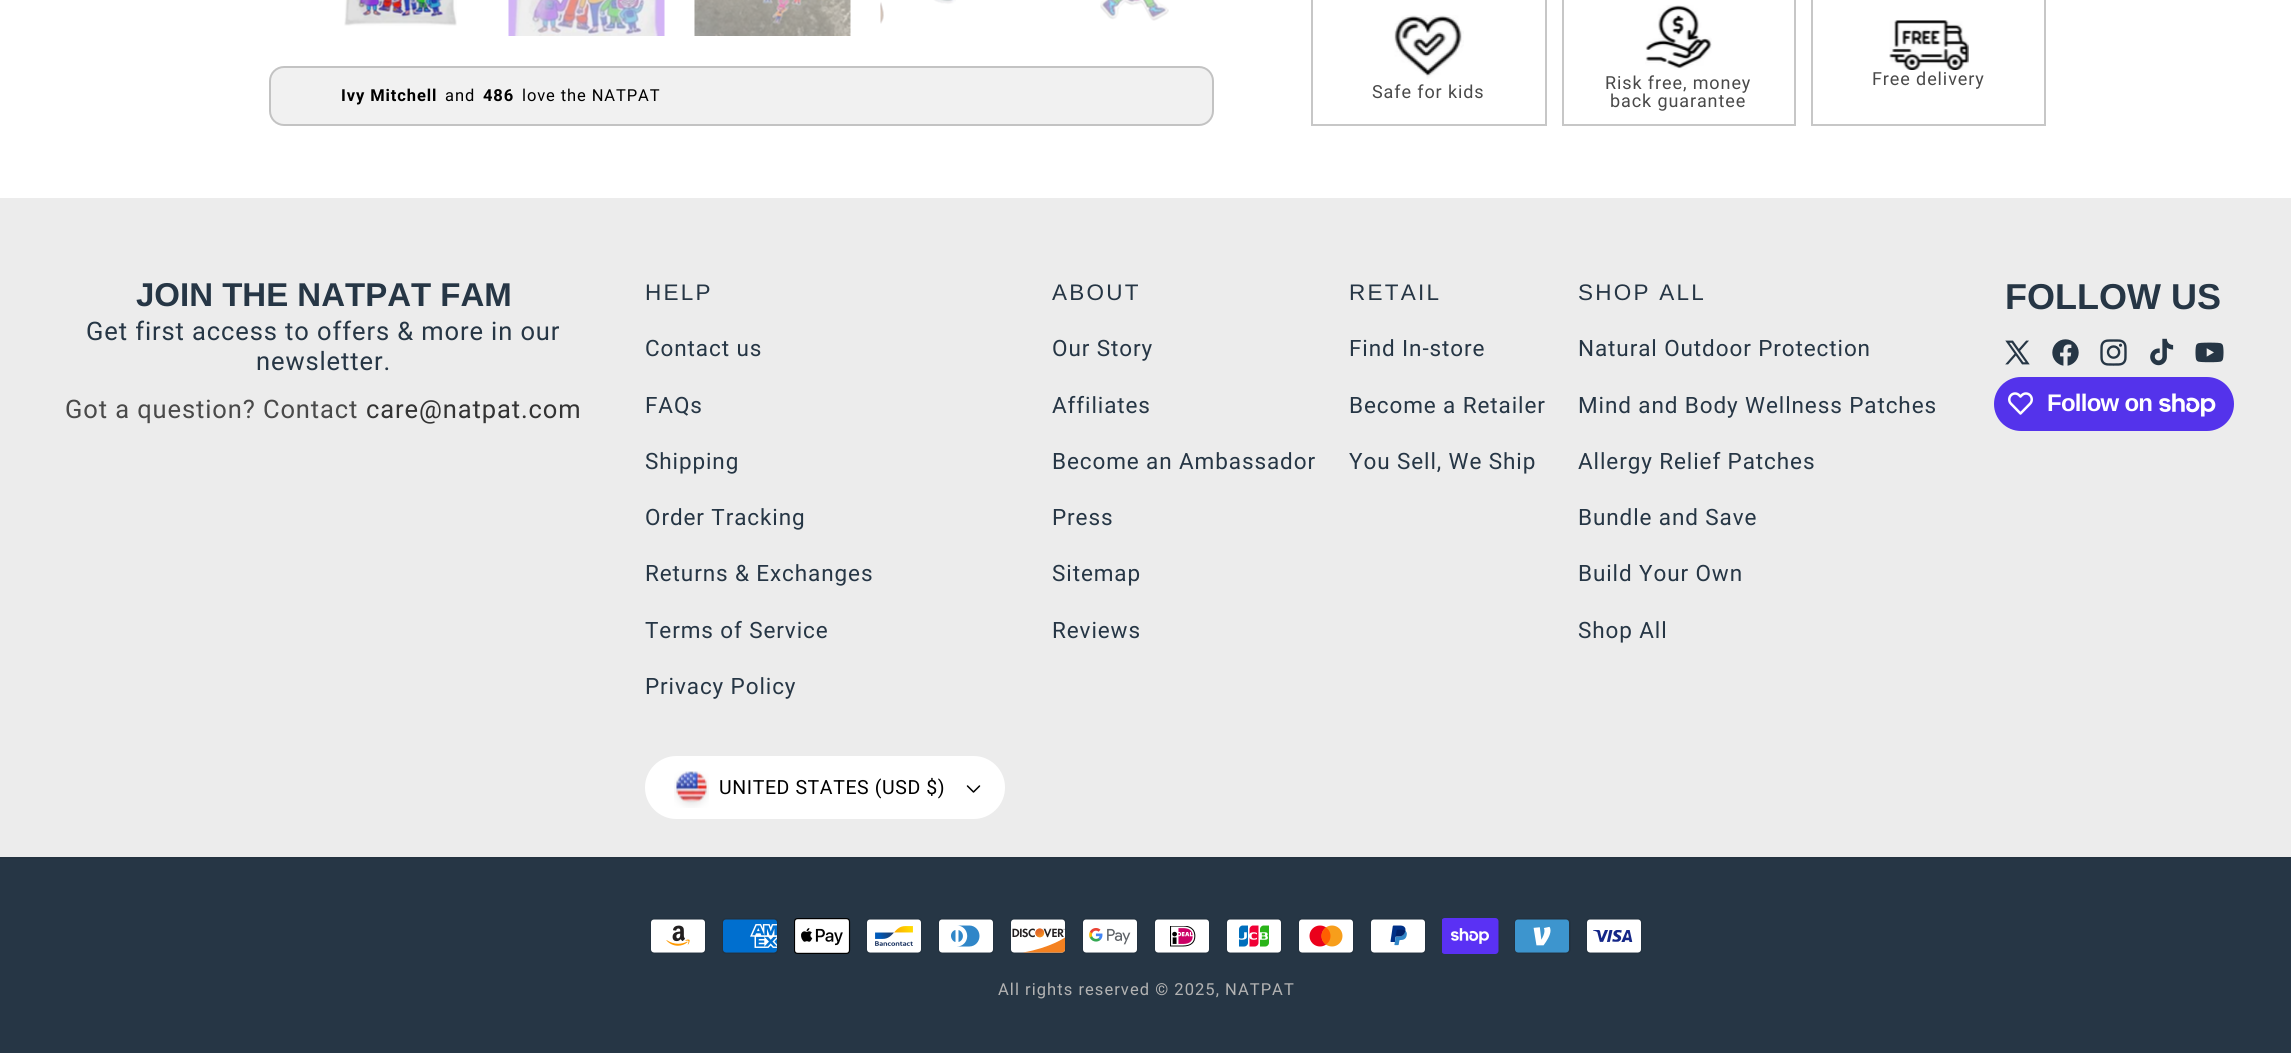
#include <cairo.h>
#include <math.h>
#include <stddef.h>


static void rgb(cairo_t *cr, int r, int g, int b)
{
	cairo_set_source_rgb(cr, r / 255.0, g / 255.0, b / 255.0);
}

static void face(cairo_t *cr, const char *family, double size, int italic, int bold)
{
	cairo_select_font_face(cr, family, italic ? CAIRO_FONT_SLANT_ITALIC : CAIRO_FONT_SLANT_NORMAL,
		bold ? CAIRO_FONT_WEIGHT_BOLD : CAIRO_FONT_WEIGHT_NORMAL);
	cairo_set_font_size(cr, size);
}

static void label(cairo_t *cr, double x, double y, const char *s)
{
	cairo_move_to(cr, x, y);
	cairo_show_text(cr, s);
}

static void tracked(cairo_t *cr, double x, double y, const char *s, double letter, double word)
{
	cairo_move_to(cr, x, y);
	while (*s) {
		char ch[5] = {0};
		int n = 0;
		do ch[n++] = *s++; while ((*s & 0xC0) == 0x80);
		cairo_show_text(cr, ch);
		cairo_rel_move_to(cr, letter + word * (*ch == ' '), 0);
	}
}

static void rect(cairo_t *cr, double x, double y, double w, double h)
{
	cairo_rectangle(cr, x, y, w, h);
	cairo_fill(cr);
}

static void rrect(cairo_t *cr, double x, double y, double w, double h, double r)
{
	cairo_new_sub_path(cr);
	cairo_arc(cr, x + w - r, y + h - r, r, 0, M_PI / 2);
	cairo_arc(cr, x + r, y + h - r, r, M_PI / 2, M_PI);
	cairo_arc(cr, x + r, y + r, r, M_PI, 1.5 * M_PI);
	cairo_arc(cr, x + w - r, y + r, r, 1.5 * M_PI, 2 * M_PI);
	cairo_close_path(cr);
}

static void image(cairo_t *cr, const char *path, double x, double y, double w, double h)
{
	cairo_surface_t *image = cairo_image_surface_create_from_png(path);
	cairo_save(cr);
	cairo_set_source_surface(cr, image, x, y);
	cairo_rectangle(cr, x, y, w, h);
	cairo_fill(cr);
	cairo_restore(cr);
	cairo_surface_destroy(image);
}

static void draw(cairo_t *cr) {
	rgb(cr, 255, 255, 255);
	cairo_paint(cr);
	image(cr, "image0.png", 344, 0, 113, 26);
	image(cr, "image1.png", 508, 0, 157, 36);
	image(cr, "image2.png", 694, 0, 157, 36);
	image(cr, "image3.png", 880, 0, 76, 24);
	image(cr, "image4.png", 1100, 0, 69, 21);
	rgb(cr, 241, 241, 241);
	rrect(cr, 270, 67, 943, 58, 14);
	cairo_fill_preserve(cr);
	rgb(cr, 195, 195, 195);
	cairo_stroke(cr);
	face(cr, "Roboto", 16.5, 0, 1);
	rgb(cr, 0, 0, 0);
	tracked(cr, 341, 101, "Ivy Mitchell", 0.9, 0);
	face(cr, "Roboto", 16.5, 0, 0);
	tracked(cr, 445, 101, "and", 0.9, 0);
	face(cr, "Roboto", 16.5, 0, 1);
	tracked(cr, 483, 101, "486", 0.9, 0);
	face(cr, "Roboto", 16.5, 0, 0);
	tracked(cr, 522, 101, "love the NATPAT", 0.9, 0);
	cairo_rectangle(cr, 1312, -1, 234, 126);
	rgb(cr, 199, 199, 199);
	cairo_stroke(cr);
	image(cr, "image5.png", 1394, 15, 70, 64);
	face(cr, "Roboto", 18, 0, 0);
	rgb(cr, 73, 73, 73);
	tracked(cr, 1372, 98, "Safe for kids", 0.9, 0);
	cairo_rectangle(cr, 1563, -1, 232, 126);
	rgb(cr, 199, 199, 199);
	cairo_stroke(cr);
	image(cr, "image6.png", 1645, 5, 67, 65);
	rgb(cr, 73, 73, 73);
	tracked(cr, 1605, 89, "Risk free, money", 0.9, 0);
	tracked(cr, 1610, 107, "back guarantee", 0.9, 0);
	cairo_rectangle(cr, 1812, -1, 233, 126);
	rgb(cr, 199, 199, 199);
	cairo_stroke(cr);
	image(cr, "image7.png", 1889, 20, 80, 50);
	rgb(cr, 73, 73, 73);
	tracked(cr, 1872, 85, "Free delivery", 0.9, 0);
	rgb(cr, 236, 236, 236);
	rect(cr, 0, 198, 2291, 659);
	face(cr, "Liberation Sans", 33, 0, 1);
	rgb(cr, 38, 54, 69);
	label(cr, 136, 306, "JOIN THE NATPAT FAM");
	face(cr, "Roboto", 25.5, 0, 0);
	tracked(cr, 86, 340, "Get first access to offers & more in our", 0.9, 0);
	tracked(cr, 256, 370, "newsletter.", 0.9, 0);
	rgb(cr, 73, 73, 73);
	tracked(cr, 65, 418, "Got a question? Contact", 0.9, 0);
	rgb(cr, 51, 51, 51);
	tracked(cr, 366, 418, "care@natpat.com", 0.9, 0);
	face(cr, "Liberation Sans", 22.5, 0, 0);
	rgb(cr, 38, 54, 69);
	tracked(cr, 645, 300, "HELP", 2.25, 0);
	face(cr, "Roboto", 22.5, 0, 0);
	tracked(cr, 645, 356, "Contact us", 0.9, 0);
	tracked(cr, 645, 413, "FAQs", 0.9, 0);
	tracked(cr, 645, 469, "Shipping", 0.9, 0);
	tracked(cr, 645, 525, "Order Tracking", 0.9, 0);
	tracked(cr, 645, 581, "Returns & Exchanges", 0.9, 0);
	tracked(cr, 645, 638, "Terms of Service", 0.9, 0);
	tracked(cr, 645, 694, "Privacy Policy", 0.9, 0);
	rgb(cr, 255, 255, 255);
	rrect(cr, 645, 756, 360, 63, 31.5);
	cairo_fill(cr);
	image(cr, "image8.png", 674, 771, 35, 37);
	face(cr, "Roboto", 19.5, 0, 0);
	rgb(cr, 0, 0, 0);
	tracked(cr, 719, 794, "UNITED STATES (USD $)", 0.6, 0);
	image(cr, "image9.png", 966, 785, 15, 8);
	face(cr, "Liberation Sans", 22.5, 0, 0);
	rgb(cr, 38, 54, 69);
	tracked(cr, 1052, 300, "ABOUT", 2.25, 0);
	face(cr, "Roboto", 22.5, 0, 0);
	tracked(cr, 1052, 356, "Our Story", 0.9, 0);
	tracked(cr, 1052, 413, "Affiliates", 0.9, 0);
	tracked(cr, 1052, 469, "Become an Ambassador", 0.9, 0);
	tracked(cr, 1052, 525, "Press", 0.9, 0);
	tracked(cr, 1052, 581, "Sitemap", 0.9, 0);
	tracked(cr, 1052, 638, "Reviews", 0.9, 0);
	face(cr, "Liberation Sans", 22.5, 0, 0);
	tracked(cr, 1349, 300, "RETAIL", 2.25, 0);
	face(cr, "Roboto", 22.5, 0, 0);
	tracked(cr, 1349, 356, "Find In-store", 0.9, 0);
	tracked(cr, 1349, 413, "Become a Retailer", 0.9, 0);
	tracked(cr, 1349, 469, "You Sell, We Ship", 0.9, 0);
	face(cr, "Liberation Sans", 22.5, 0, 0);
	tracked(cr, 1578, 300, "SHOP ALL", 2.25, 0);
	face(cr, "Roboto", 22.5, 0, 0);
	tracked(cr, 1578, 356, "Natural Outdoor Protection", 0.9, 0);
	tracked(cr, 1578, 413, "Mind and Body Wellness Patches", 0.9, 0);
	tracked(cr, 1578, 469, "Allergy Relief Patches", 0.9, 0);
	tracked(cr, 1578, 525, "Bundle and Save", 0.9, 0);
	tracked(cr, 1578, 581, "Build Your Own", 0.9, 0);
	tracked(cr, 1578, 638, "Shop All", 0.9, 0);
	face(cr, "Liberation Sans", 36, 0, 1);
	label(cr, 2005, 309, "FOLLOW US");
	image(cr, "image10.png", 2005, 340, 25, 25);
	image(cr, "image11.png", 2052, 339, 27, 27);
	image(cr, "image12.png", 2100, 339, 27, 27);
	image(cr, "image13.png", 2150, 338, 24, 28);
	image(cr, "image14.png", 2195, 342, 29, 21);
	rgb(cr, 84, 51, 235);
	rrect(cr, 1994, 377, 240, 54, 27);
	cairo_fill(cr);
	image(cr, "image15.png", 2008, 392, 25, 23);
	face(cr, "Liberation Sans", 24, 0, 1);
	rgb(cr, 255, 255, 255);
	tracked(cr, 2047, 411, "Follow on", -0.75, 0);
	image(cr, "image16.png", 2159, 393, 57, 24);
	rgb(cr, 38, 54, 69);
	rect(cr, 0, 859, 2291, 194);
	rgb(cr, 36, 51, 65);
	rect(cr, 0, 857, 2291, 2);
	image(cr, "image17.png", 650, 918, 56, 36);
	image(cr, "image18.png", 722, 918, 56, 36);
	image(cr, "image19.png", 794, 918, 57, 36);
	image(cr, "image20.png", 866, 918, 56, 36);
	image(cr, "image21.png", 938, 918, 56, 36);
	image(cr, "image22.png", 1010, 918, 56, 36);
	image(cr, "image23.png", 1082, 918, 56, 36);
	image(cr, "image24.png", 1154, 918, 56, 36);
	image(cr, "image25.png", 1226, 918, 56, 36);
	image(cr, "image26.png", 1298, 918, 56, 36);
	image(cr, "image27.png", 1370, 918, 56, 36);
	image(cr, "image28.png", 1442, 918, 57, 36);
	image(cr, "image29.png", 1514, 918, 57, 36);
	image(cr, "image30.png", 1586, 918, 56, 36);
	face(cr, "Roboto", 16.5, 0, 0);
	rgb(cr, 179, 179, 179);
	tracked(cr, 998, 995, "All rights reserved © 2025, NATPAT", 1.05, 0);
}

int main(void) {
	cairo_surface_t *surface = cairo_image_surface_create(CAIRO_FORMAT_RGB24, 2291, 1056);
	cairo_t *cr = cairo_create(surface);
	cairo_font_options_t *options = cairo_font_options_create();
	cairo_font_options_set_hint_metrics(options, CAIRO_HINT_METRICS_OFF);
	cairo_font_options_set_hint_style(options, CAIRO_HINT_STYLE_NONE);
	cairo_set_font_options(cr, options);
	cairo_set_miter_limit(cr, 4);
	draw(cr);
	cairo_surface_write_to_png(surface, "render.png");
	cairo_font_options_destroy(options);
	cairo_destroy(cr);
	cairo_surface_destroy(surface);
	return 0;
}
